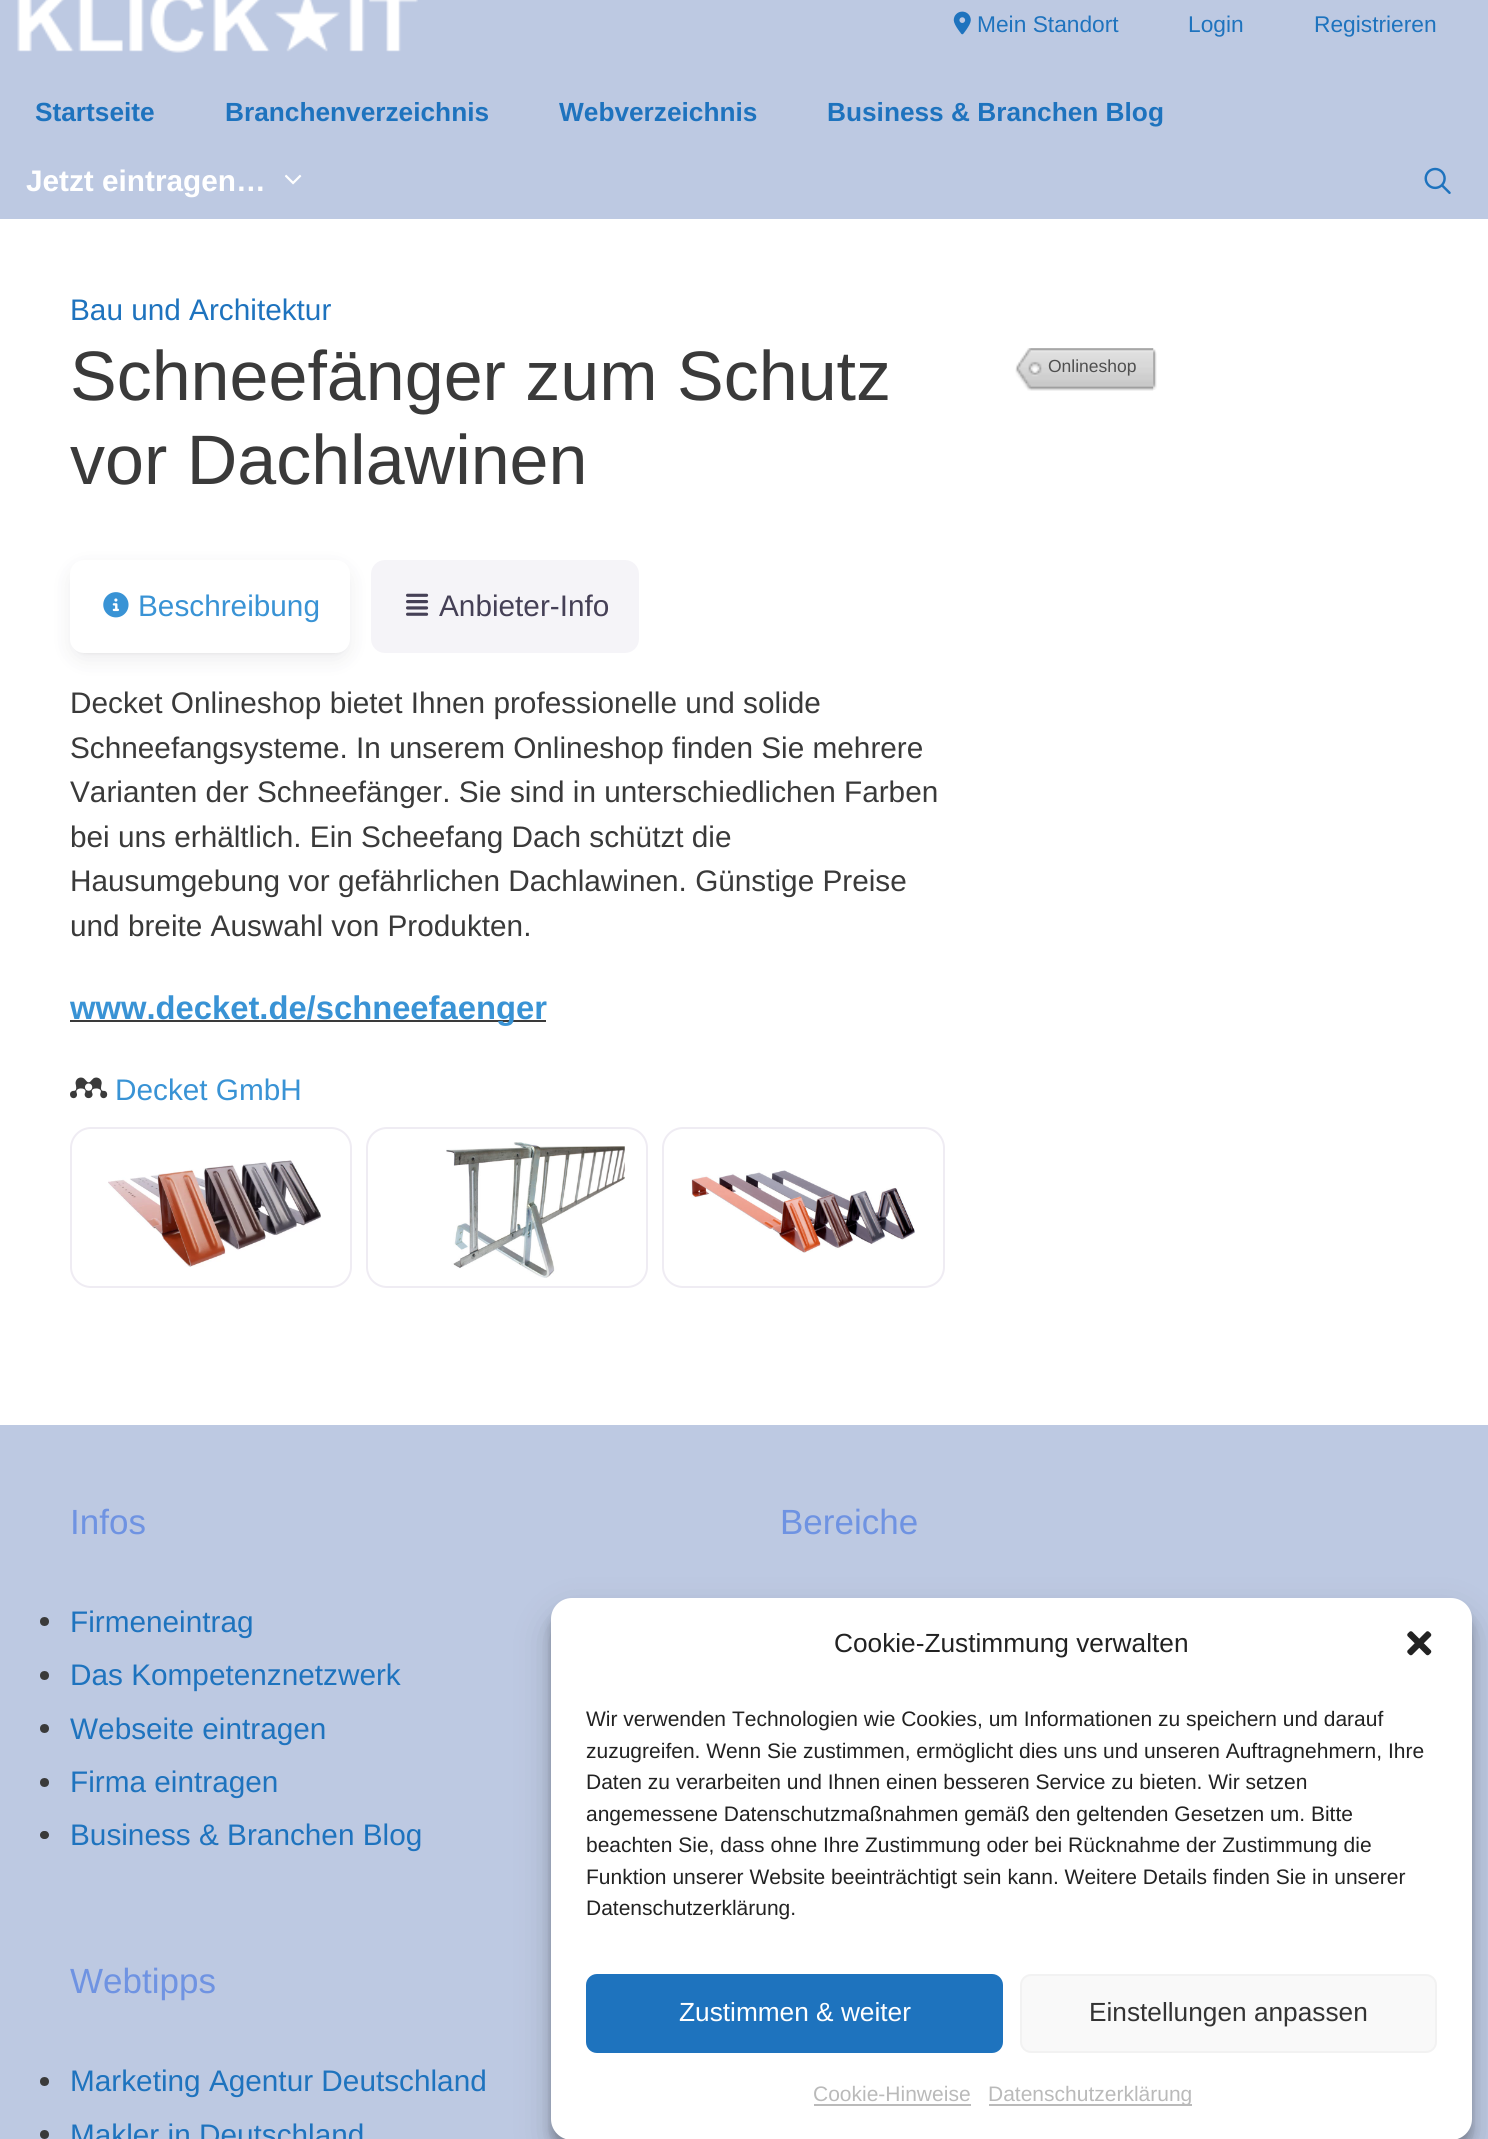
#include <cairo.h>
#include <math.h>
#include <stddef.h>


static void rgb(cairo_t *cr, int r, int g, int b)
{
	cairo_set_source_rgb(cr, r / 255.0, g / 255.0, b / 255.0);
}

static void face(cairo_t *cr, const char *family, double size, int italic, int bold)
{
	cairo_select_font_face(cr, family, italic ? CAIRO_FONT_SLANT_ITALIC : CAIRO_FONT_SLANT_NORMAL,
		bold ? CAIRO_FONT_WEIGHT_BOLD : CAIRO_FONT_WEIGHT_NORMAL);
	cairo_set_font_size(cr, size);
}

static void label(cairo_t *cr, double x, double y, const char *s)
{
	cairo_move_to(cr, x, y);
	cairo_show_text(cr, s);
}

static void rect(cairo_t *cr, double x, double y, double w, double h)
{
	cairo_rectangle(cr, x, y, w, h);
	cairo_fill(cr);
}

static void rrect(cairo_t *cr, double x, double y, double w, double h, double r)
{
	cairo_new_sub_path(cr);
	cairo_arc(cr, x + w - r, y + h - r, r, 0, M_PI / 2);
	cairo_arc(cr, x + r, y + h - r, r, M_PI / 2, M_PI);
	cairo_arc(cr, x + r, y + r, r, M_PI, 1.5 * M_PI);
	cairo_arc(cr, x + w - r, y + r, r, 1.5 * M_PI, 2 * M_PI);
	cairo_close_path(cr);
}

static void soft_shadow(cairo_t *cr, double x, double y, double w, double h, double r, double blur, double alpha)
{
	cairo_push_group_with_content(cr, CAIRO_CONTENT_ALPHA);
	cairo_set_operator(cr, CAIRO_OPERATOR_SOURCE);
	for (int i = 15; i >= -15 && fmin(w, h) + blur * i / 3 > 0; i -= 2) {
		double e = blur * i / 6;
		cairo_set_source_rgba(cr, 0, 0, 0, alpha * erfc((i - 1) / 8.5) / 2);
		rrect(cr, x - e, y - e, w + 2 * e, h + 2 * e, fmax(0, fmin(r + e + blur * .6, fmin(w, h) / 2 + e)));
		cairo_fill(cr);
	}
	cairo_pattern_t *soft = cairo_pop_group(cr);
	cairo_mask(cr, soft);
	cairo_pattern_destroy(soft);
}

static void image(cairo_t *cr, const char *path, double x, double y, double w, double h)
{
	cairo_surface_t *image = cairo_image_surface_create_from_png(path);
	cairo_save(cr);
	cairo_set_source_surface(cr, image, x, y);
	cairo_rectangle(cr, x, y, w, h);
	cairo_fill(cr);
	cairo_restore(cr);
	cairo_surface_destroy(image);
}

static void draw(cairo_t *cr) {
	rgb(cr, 189, 201, 226);
	cairo_paint(cr);
	image(cr, "image0.png", 17, 0, 401, 53);
	image(cr, "image1.png", 953, 11, 18, 24);
	face(cr, "Liberation Sans", 22.75, 0, 0);
	rgb(cr, 30, 115, 190);
	label(cr, 977, 32, "Mein Standort");
	label(cr, 1188, 32, "Login");
	label(cr, 1314, 32, "Registrieren");
	face(cr, "Liberation Sans", 26.25, 0, 1);
	label(cr, 35, 121, "Startseite");
	label(cr, 225, 121, "Branchenverzeichnis");
	label(cr, 559, 121, "Webverzeichnis");
	label(cr, 827, 121, "Business & Branchen Blog");
	face(cr, "Liberation Sans", 29.75, 0, 1);
	rgb(cr, 255, 255, 255);
	label(cr, 26, 191, "Jetzt eintragen…");
	image(cr, "image2.png", 285, 174, 17, 11);
	image(cr, "image3.png", 1424, 167, 27, 27);
	rect(cr, 0, 219, 1488, 1206);
	face(cr, "Liberation Sans", 29.75, 0, 0);
	rgb(cr, 30, 115, 190);
	label(cr, 70, 320, "Bau und Architektur");
	face(cr, "Liberation Sans", 70, 0, 0);
	rgb(cr, 58, 58, 58);
	label(cr, 70, 400, "Schneefänger zum Schutz");
	label(cr, 70, 484, "vor Dachlawinen");
	rgb(cr, 31, 27, 45);
	soft_shadow(cr, 70, 567, 280, 93, 14, 10.5, 0.08);
	soft_shadow(cr, 74, 567, 273, 86, 11, 2, 0.08);
	rgb(cr, 255, 255, 255);
	rrect(cr, 70, 560, 280, 93, 14);
	cairo_fill(cr);
	image(cr, "image4.png", 103, 592, 26, 26);
	face(cr, "Liberation Sans", 29.75, 0, 0);
	rgb(cr, 57, 147, 213);
	label(cr, 138, 616, "Beschreibung");
	rgb(cr, 245, 244, 248);
	rrect(cr, 371, 560, 268, 93, 14);
	cairo_fill(cr);
	image(cr, "image5.png", 406, 593, 23, 23);
	rgb(cr, 69, 64, 86);
	label(cr, 439, 616, "Anbieter-Info");
	rgb(cr, 58, 58, 58);
	label(cr, 70, 713, "Decket Onlineshop bietet Ihnen professionelle und solide");
	label(cr, 70, 758, "Schneefangsysteme. In unserem Onlineshop finden Sie mehrere");
	label(cr, 70, 802, "Varianten der Schneefänger. Sie sind in unterschiedlichen Farben");
	label(cr, 70, 847, "bei uns erhältlich. Ein Scheefang Dach schützt die");
	label(cr, 70, 891, "Hausumgebung vor gefährlichen Dachlawinen. Günstige Preise");
	label(cr, 70, 936, "und breite Auswahl von Produkten.");
	rect(cr, 70, 1020, 476, 2);
	face(cr, "Liberation Sans", 32.75, 0, 1);
	rgb(cr, 57, 147, 213);
	label(cr, 70, 1019, "www.decket.de/schneefaenger");
	image(cr, "image6.png", 70, 1077, 38, 22);
	face(cr, "Liberation Sans", 29.75, 0, 0);
	label(cr, 115, 1100, "Decket GmbH");
	rrect(cr, 71, 1128, 280, 159, 20);
	rgb(cr, 239, 236, 243);
	cairo_stroke(cr);
	image(cr, "image7.png", 108, 1160, 213, 107);
	rrect(cr, 367, 1128, 280, 159, 20);
	cairo_stroke(cr);
	image(cr, "image8.png", 446, 1142, 179, 136);
	rrect(cr, 663, 1128, 281, 159, 20);
	cairo_stroke(cr);
	image(cr, "image9.png", 691, 1170, 224, 83);
	image(cr, "image10.png", 1015, 348, 139, 43);
	face(cr, "Liberation Sans", 17.5, 0, 0);
	rgb(cr, 79, 79, 79);
	label(cr, 1048, 372, "Onlineshop");
	image(cr, "image11.png", 1153, 349, 4, 41);
	face(cr, "Liberation Sans", 35, 0, 0);
	rgb(cr, 111, 147, 226);
	label(cr, 70, 1534, "Infos");
	rgb(cr, 58, 58, 58);
	cairo_new_path(cr);
	cairo_arc(cr, 44.5, 1621.5, 4.5, 0, 2 * M_PI);
	cairo_fill(cr);
	face(cr, "Liberation Sans", 29.75, 0, 0);
	rgb(cr, 30, 115, 190);
	label(cr, 70, 1632, "Firmeneintrag");
	rgb(cr, 58, 58, 58);
	cairo_new_path(cr);
	cairo_arc(cr, 44.5, 1675.5, 4.5, 0, 2 * M_PI);
	cairo_fill(cr);
	rgb(cr, 30, 115, 190);
	label(cr, 70, 1685, "Das Kompetenznetzwerk");
	rgb(cr, 58, 58, 58);
	cairo_new_path(cr);
	cairo_arc(cr, 44.5, 1728.5, 4.5, 0, 2 * M_PI);
	cairo_fill(cr);
	rgb(cr, 30, 115, 190);
	label(cr, 70, 1739, "Webseite eintragen");
	rgb(cr, 58, 58, 58);
	cairo_new_path(cr);
	cairo_arc(cr, 44.5, 1782.5, 4.5, 0, 2 * M_PI);
	cairo_fill(cr);
	rgb(cr, 30, 115, 190);
	label(cr, 70, 1792, "Firma eintragen");
	rgb(cr, 58, 58, 58);
	rrect(cr, 40, 1831, 9, 8, 4);
	cairo_fill(cr);
	rgb(cr, 30, 115, 190);
	label(cr, 70, 1845, "Business & Branchen Blog");
	face(cr, "Liberation Sans", 35, 0, 0);
	rgb(cr, 111, 147, 226);
	label(cr, 780, 1534, "Bereiche");
	label(cr, 70, 1993, "Webtipps");
	rgb(cr, 58, 58, 58);
	cairo_new_path(cr);
	cairo_arc(cr, 44.5, 2081.5, 4.5, 0, 2 * M_PI);
	cairo_fill(cr);
	face(cr, "Liberation Sans", 29.75, 0, 0);
	rgb(cr, 30, 115, 190);
	label(cr, 70, 2091, "Marketing Agentur Deutschland");
	rgb(cr, 58, 58, 58);
	cairo_new_path(cr);
	cairo_arc(cr, 44.5, 2134.5, 4.5, 0, 2 * M_PI);
	cairo_fill(cr);
	rgb(cr, 30, 115, 190);
	label(cr, 70, 2145, "Makler in Deutschland");
	rgb(cr, 0, 0, 0);
	soft_shadow(cr, 551, 1608, 921, 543, 21, 5, 0.23);
	soft_shadow(cr, 551, 1615, 921, 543, 21, 17.5, 0.19);
	rgb(cr, 255, 255, 255);
	rrect(cr, 551, 1598, 921, 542, 21);
	cairo_fill(cr);
	face(cr, "Liberation Sans", 26.25, 0, 0);
	rgb(cr, 34, 34, 34);
	label(cr, 834, 1652, "Cookie-Zustimmung verwalten");
	image(cr, "image12.png", 1407, 1631, 25, 25);
	face(cr, "Liberation Sans", 21, 0, 0);
	label(cr, 586, 1726, "Wir verwenden Technologien wie Cookies, um Informationen zu speichern und darauf");
	label(cr, 586, 1758, "zuzugreifen. Wenn Sie zustimmen, ermöglicht dies uns und unseren Auftragnehmern, Ihre");
	label(cr, 586, 1789, "Daten zu verarbeiten und Ihnen einen besseren Service zu bieten. Wir setzen");
	label(cr, 586, 1821, "angemessene Datenschutzmaßnahmen gemäß den geltenden Gesetzen um. Bitte");
	label(cr, 586, 1852, "beachten Sie, dass ohne Ihre Zustimmung oder bei Rücknahme der Zustimmung die");
	label(cr, 586, 1884, "Funktion unserer Website beeinträchtigt sein kann. Weitere Details finden Sie in unserer");
	label(cr, 586, 1915, "Datenschutzerklärung.");
	rgb(cr, 30, 115, 190);
	rrect(cr, 587, 1975, 415, 77, 10);
	cairo_fill_preserve(cr);
	cairo_stroke(cr);
	face(cr, "Liberation Sans", 26.25, 0, 0);
	rgb(cr, 255, 255, 255);
	label(cr, 679, 2021, "Zustimmen & weiter");
	rgb(cr, 249, 249, 249);
	rrect(cr, 1021, 1975, 415, 77, 10);
	cairo_fill_preserve(cr);
	rgb(cr, 242, 242, 242);
	cairo_stroke(cr);
	rgb(cr, 51, 51, 51);
	label(cr, 1089, 2021, "Einstellungen anpassen");
	face(cr, "Liberation Sans", 21, 0, 0);
	rgb(cr, 186, 186, 186);
	label(cr, 813, 2101, "Cookie-Hinweise");
	rect(cr, 814, 2104, 157, 2);
	rect(cr, 989, 2104, 203, 2);
	label(cr, 988, 2101, "Datenschutzerklärung");
}

int main(void) {
	cairo_surface_t *surface = cairo_image_surface_create(CAIRO_FORMAT_RGB24, 1488, 2139);
	cairo_t *cr = cairo_create(surface);
	cairo_font_options_t *options = cairo_font_options_create();
	cairo_font_options_set_hint_metrics(options, CAIRO_HINT_METRICS_OFF);
	cairo_font_options_set_hint_style(options, CAIRO_HINT_STYLE_NONE);
	cairo_set_font_options(cr, options);
	cairo_set_miter_limit(cr, 4);
	draw(cr);
	cairo_surface_write_to_png(surface, "render.png");
	cairo_font_options_destroy(options);
	cairo_destroy(cr);
	cairo_surface_destroy(surface);
	return 0;
}
